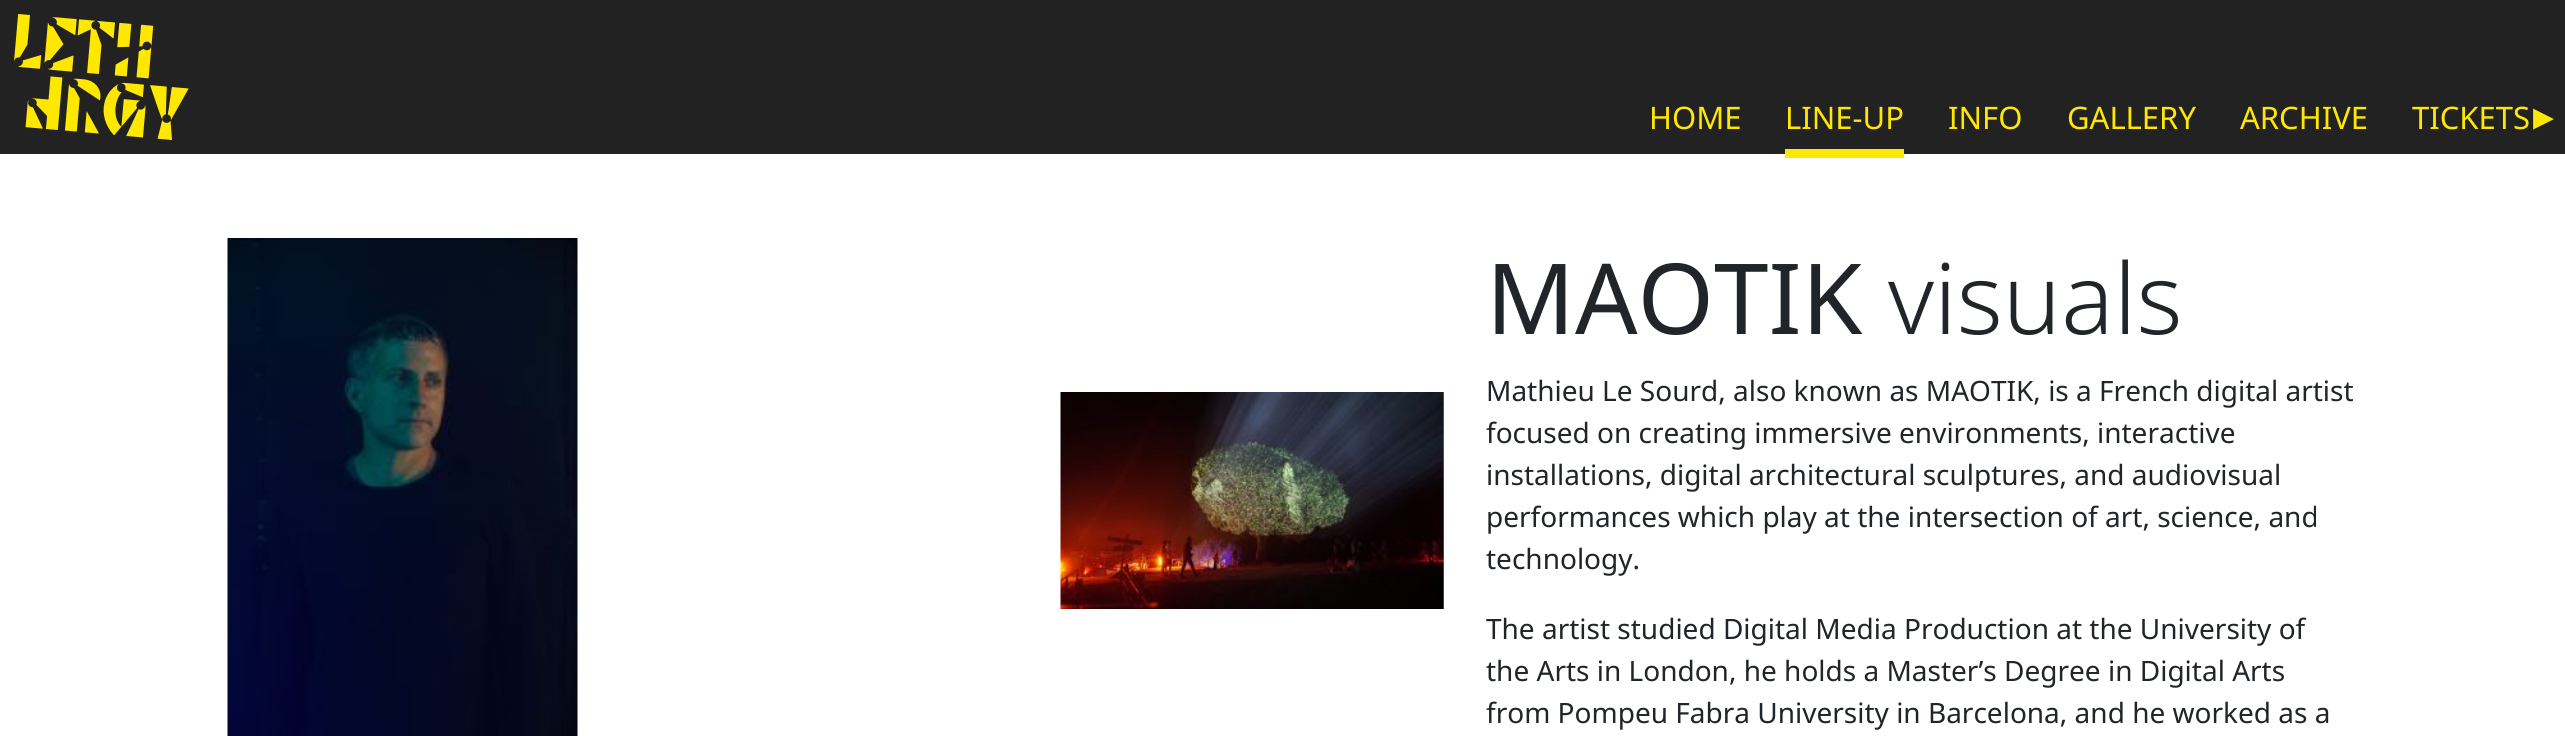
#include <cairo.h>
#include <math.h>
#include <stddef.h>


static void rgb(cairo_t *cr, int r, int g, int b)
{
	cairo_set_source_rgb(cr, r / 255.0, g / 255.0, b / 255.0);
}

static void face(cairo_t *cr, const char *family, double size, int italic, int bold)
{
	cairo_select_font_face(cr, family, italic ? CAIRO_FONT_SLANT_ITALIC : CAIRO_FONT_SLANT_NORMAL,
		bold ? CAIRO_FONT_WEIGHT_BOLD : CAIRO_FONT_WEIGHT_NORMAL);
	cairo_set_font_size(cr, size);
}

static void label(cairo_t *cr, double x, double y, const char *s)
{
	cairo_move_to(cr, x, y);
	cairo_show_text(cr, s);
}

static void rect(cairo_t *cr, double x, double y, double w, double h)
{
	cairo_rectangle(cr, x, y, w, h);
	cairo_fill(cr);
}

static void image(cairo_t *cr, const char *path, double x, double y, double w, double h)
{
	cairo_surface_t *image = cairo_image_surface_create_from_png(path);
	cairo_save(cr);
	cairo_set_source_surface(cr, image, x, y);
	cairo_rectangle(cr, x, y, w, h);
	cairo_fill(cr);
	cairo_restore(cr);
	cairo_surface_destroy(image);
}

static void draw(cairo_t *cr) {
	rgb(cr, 255, 255, 255);
	cairo_paint(cr);
	rgb(cr, 34, 34, 34);
	rect(cr, 0, 0, 2565, 154);
	image(cr, "image0.png", 14, 14, 175, 126);
	face(cr, "Noto Sans", 31, 0, 0);
	rgb(cr, 255, 232, 0);
	label(cr, 1649, 129, "HOME");
	label(cr, 1785, 129, "LINE-UP");
	rect(cr, 1785, 149, 119, 9);
	label(cr, 1948, 129, "INFO");
	label(cr, 2067, 129, "GALLERY");
	label(cr, 2240, 129, "ARCHIVE");
	label(cr, 2412, 129, "TICKETS");
	face(cr, "DejaVu Sans", 42, 0, 0);
	label(cr, 2533, 130, "▸");
	image(cr, "image1.png", 227, 238, 351, 498);
	image(cr, "image2.png", 1060, 392, 384, 217);
	face(cr, "Noto Sans", 98, 0, 0);
	rgb(cr, 33, 37, 41);
	label(cr, 1486, 334, "MAOTIK");
	face(cr, "Noto Sans Light", 98, 0, 0);
	label(cr, 1888, 334, "visuals");
	face(cr, "Noto Sans", 28, 0, 0);
	label(cr, 1486, 401, "Mathieu Le Sourd, also known as MAOTIK, is a French digital artist");
	label(cr, 1486, 443, "focused on creating immersive environments, interactive");
	label(cr, 1486, 485, "installations, digital architectural sculptures, and audiovisual");
	label(cr, 1486, 527, "performances which play at the intersection of art, science, and");
	label(cr, 1486, 569, "technology.");
	label(cr, 1486, 639, "The artist studied Digital Media Production at the University of");
	label(cr, 1486, 681, "the Arts in London, he holds a Master’s Degree in Digital Arts");
	label(cr, 1486, 723, "from Pompeu Fabra University in Barcelona, and he worked as a");
}

int main(void) {
	cairo_surface_t *surface = cairo_image_surface_create(CAIRO_FORMAT_RGB24, 2565, 736);
	cairo_t *cr = cairo_create(surface);
	cairo_font_options_t *options = cairo_font_options_create();
	cairo_font_options_set_hint_metrics(options, CAIRO_HINT_METRICS_OFF);
	cairo_font_options_set_hint_style(options, CAIRO_HINT_STYLE_NONE);
	cairo_set_font_options(cr, options);
	cairo_set_miter_limit(cr, 4);
	draw(cr);
	cairo_surface_write_to_png(surface, "render.png");
	cairo_font_options_destroy(options);
	cairo_destroy(cr);
	cairo_surface_destroy(surface);
	return 0;
}
